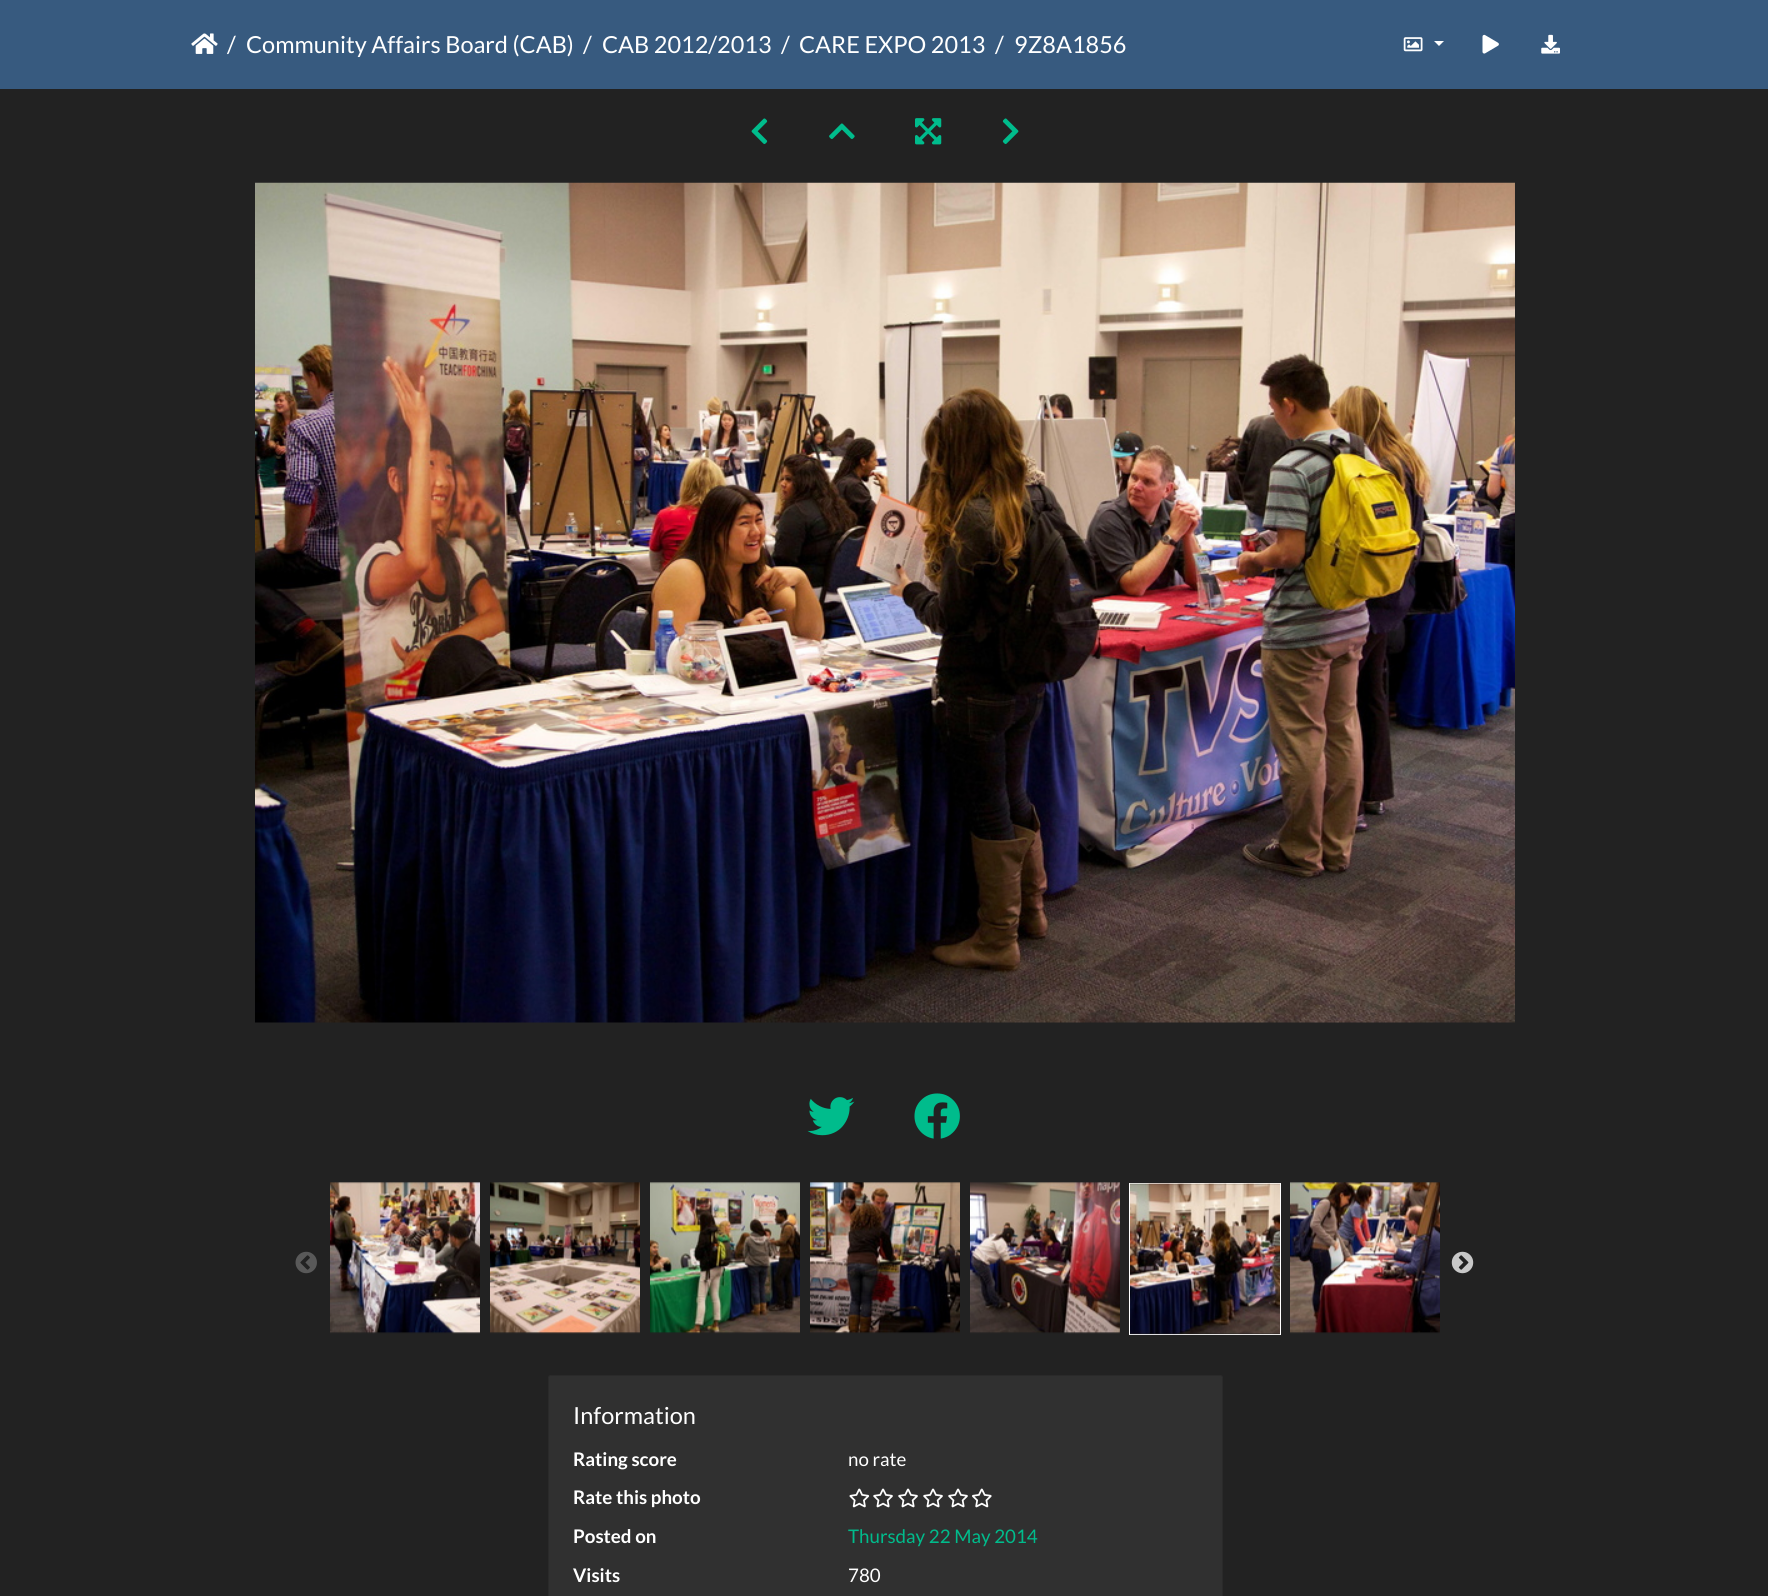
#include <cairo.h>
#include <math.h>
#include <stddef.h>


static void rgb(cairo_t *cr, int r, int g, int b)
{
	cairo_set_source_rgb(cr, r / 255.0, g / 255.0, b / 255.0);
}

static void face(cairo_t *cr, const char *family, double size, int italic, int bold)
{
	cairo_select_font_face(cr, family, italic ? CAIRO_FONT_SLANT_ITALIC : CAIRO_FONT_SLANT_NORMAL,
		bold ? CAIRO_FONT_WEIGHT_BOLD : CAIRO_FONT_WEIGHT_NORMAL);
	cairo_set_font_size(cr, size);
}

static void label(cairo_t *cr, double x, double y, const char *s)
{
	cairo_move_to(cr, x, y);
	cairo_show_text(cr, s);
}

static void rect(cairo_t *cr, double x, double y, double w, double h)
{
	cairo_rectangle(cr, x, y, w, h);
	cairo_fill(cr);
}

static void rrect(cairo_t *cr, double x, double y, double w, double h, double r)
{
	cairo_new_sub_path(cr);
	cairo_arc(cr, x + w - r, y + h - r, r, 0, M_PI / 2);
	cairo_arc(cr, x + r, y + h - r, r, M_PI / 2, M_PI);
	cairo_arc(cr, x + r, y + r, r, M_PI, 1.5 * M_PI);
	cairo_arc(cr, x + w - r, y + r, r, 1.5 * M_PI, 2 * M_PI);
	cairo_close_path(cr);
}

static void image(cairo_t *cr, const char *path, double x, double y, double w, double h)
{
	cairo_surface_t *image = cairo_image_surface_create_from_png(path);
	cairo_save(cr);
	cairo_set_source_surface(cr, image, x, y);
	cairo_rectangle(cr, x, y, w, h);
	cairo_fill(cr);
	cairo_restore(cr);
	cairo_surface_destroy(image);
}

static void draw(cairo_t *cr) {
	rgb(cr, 34, 34, 34);
	cairo_paint(cr);
	rgb(cr, 55, 90, 127);
	rect(cr, 0, 0, 1768, 89);
	image(cr, "image0.png", 191, 33, 27, 21);
	face(cr, "Lato", 23.5, 0, 0);
	rgb(cr, 255, 255, 255);
	label(cr, 227, 53, "/");
	label(cr, 246, 53, "Community Affairs Board (CAB)");
	label(cr, 583, 53, "/");
	label(cr, 602, 53, "CAB 2012/2013");
	label(cr, 781, 53, "/");
	label(cr, 799, 53, "CARE EXPO 2013");
	label(cr, 995, 53, "/");
	label(cr, 1014, 53, "9Z8A1856");
	image(cr, "image1.png", 1403, 37, 20, 15);
	cairo_new_path(cr);
	cairo_move_to(cr, 1434, 41);
	cairo_line_to(cr, 1444, 41);
	cairo_line_to(cr, 1439, 46);
	cairo_close_path(cr);
	cairo_fill(cr);
	image(cr, "image2.png", 1482, 34, 17, 20);
	image(cr, "image3.png", 1541, 34, 19, 20);
	image(cr, "image4.png", 751, 118, 17, 26);
	image(cr, "image5.png", 829, 123, 26, 16);
	image(cr, "image6.png", 915, 118, 27, 27);
	image(cr, "image7.png", 1002, 118, 17, 26);
	image(cr, "image8.png", 255, 182, 1260, 841);
	image(cr, "image9.png", 807, 1097, 48, 39);
	image(cr, "image10.png", 914, 1093, 46, 46);
	image(cr, "image11.png", 295, 1251, 22, 23);
	image(cr, "image12.png", 330, 1182, 150, 152);
	image(cr, "image13.png", 490, 1182, 150, 152);
	image(cr, "image14.png", 650, 1182, 150, 152);
	image(cr, "image15.png", 810, 1182, 150, 152);
	image(cr, "image16.png", 970, 1182, 150, 152);
	cairo_rectangle(cr, 1129.5, 1183.5, 151, 151);
	cairo_set_line_width(cr, 1);
	cairo_stroke(cr);
	image(cr, "image17.png", 1130, 1183, 150, 152);
	image(cr, "image18.png", 1290, 1182, 150, 152);
	image(cr, "image19.png", 1451, 1251, 23, 23);
	rgb(cr, 48, 48, 48);
	rrect(cr, 548, 1375, 675, 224, 2.5);
	cairo_fill(cr);
	rrect(cr, 548.5, 1375.5, 674, 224, 2);
	cairo_set_source_rgba(cr, 0, 0, 0, 0.12);
	cairo_stroke(cr);
	rgb(cr, 255, 255, 255);
	label(cr, 573, 1424, "Information");
	face(cr, "Lato", 18.75, 0, 1);
	label(cr, 573, 1466, "Rating score");
	face(cr, "Lato", 18.75, 0, 0);
	label(cr, 848, 1466, "no rate");
	face(cr, "Lato", 18.75, 0, 1);
	label(cr, 573, 1504, "Rate this photo");
	image(cr, "image20.png", 849, 1488, 21, 20);
	image(cr, "image21.png", 873, 1488, 20, 20);
	image(cr, "image21.png", 898, 1488, 20, 20);
	image(cr, "image21.png", 923, 1488, 20, 20);
	image(cr, "image21.png", 948, 1488, 20, 20);
	image(cr, "image22.png", 972, 1488, 20, 20);
	label(cr, 573, 1543, "Posted on");
	face(cr, "Lato", 18.75, 0, 0);
	rgb(cr, 0, 188, 140);
	label(cr, 848, 1543, "Thursday 22 May 2014");
	face(cr, "Lato", 18.75, 0, 1);
	rgb(cr, 255, 255, 255);
	label(cr, 573, 1582, "Visits");
	face(cr, "Lato", 18.75, 0, 0);
	label(cr, 848, 1582, "780");
}

int main(void) {
	cairo_surface_t *surface = cairo_image_surface_create(CAIRO_FORMAT_RGB24, 1768, 1596);
	cairo_t *cr = cairo_create(surface);
	cairo_font_options_t *options = cairo_font_options_create();
	cairo_font_options_set_hint_metrics(options, CAIRO_HINT_METRICS_OFF);
	cairo_font_options_set_hint_style(options, CAIRO_HINT_STYLE_NONE);
	cairo_set_font_options(cr, options);
	cairo_set_miter_limit(cr, 4);
	draw(cr);
	cairo_surface_write_to_png(surface, "render.png");
	cairo_font_options_destroy(options);
	cairo_destroy(cr);
	cairo_surface_destroy(surface);
	return 0;
}
